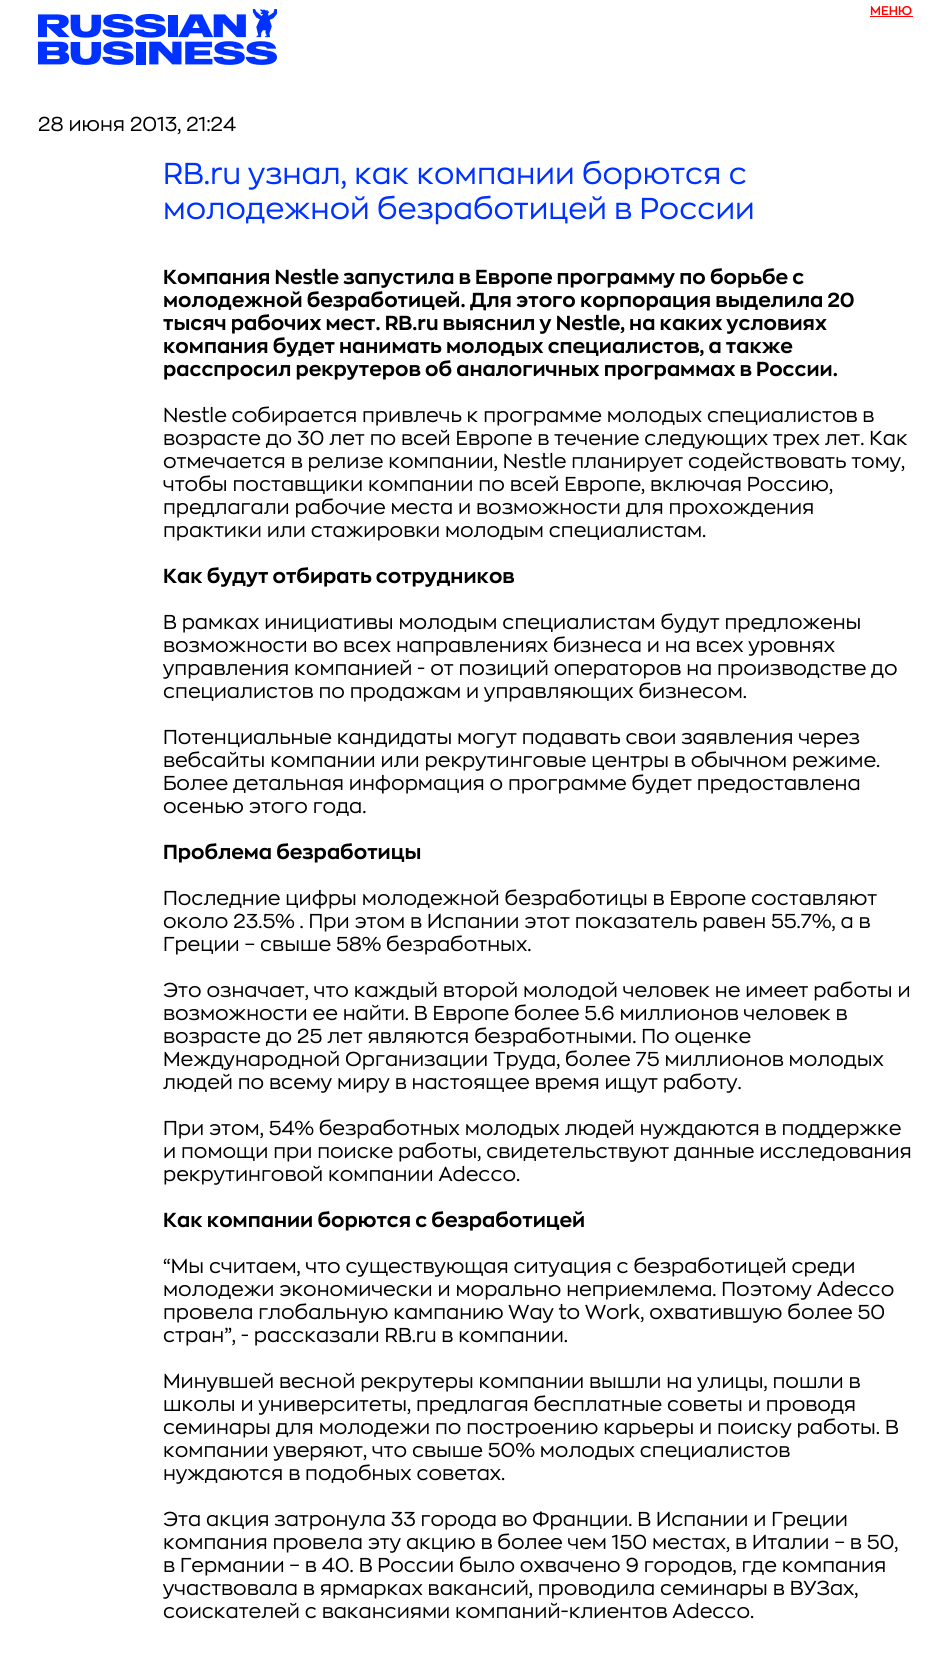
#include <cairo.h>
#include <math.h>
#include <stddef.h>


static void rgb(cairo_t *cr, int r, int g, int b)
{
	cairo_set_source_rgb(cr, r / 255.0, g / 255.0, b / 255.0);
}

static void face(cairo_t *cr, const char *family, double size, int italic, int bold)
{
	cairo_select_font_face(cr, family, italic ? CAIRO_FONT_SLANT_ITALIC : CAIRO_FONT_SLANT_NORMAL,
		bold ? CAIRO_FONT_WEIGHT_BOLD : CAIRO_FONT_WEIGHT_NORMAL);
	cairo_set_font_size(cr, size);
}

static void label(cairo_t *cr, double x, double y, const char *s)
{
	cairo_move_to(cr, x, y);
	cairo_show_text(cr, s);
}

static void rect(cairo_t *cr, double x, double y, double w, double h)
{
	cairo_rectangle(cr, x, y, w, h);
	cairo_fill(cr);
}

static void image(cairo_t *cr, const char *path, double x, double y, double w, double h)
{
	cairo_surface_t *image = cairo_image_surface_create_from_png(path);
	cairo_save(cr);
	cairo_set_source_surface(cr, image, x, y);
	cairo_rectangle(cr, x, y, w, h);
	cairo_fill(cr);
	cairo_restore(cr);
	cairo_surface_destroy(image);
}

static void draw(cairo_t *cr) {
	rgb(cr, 255, 255, 255);
	cairo_paint(cr);
	image(cr, "image0.png", 38, 9, 239, 56);
	face(cr, "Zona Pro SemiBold", 12.5, 0, 0);
	rgb(cr, 255, 4, 4);
	label(cr, 870, 15, "МЕНЮ");
	rect(cr, 870, 16, 43, 1);
	face(cr, "Zona Pro", 20, 0, 0);
	rgb(cr, 0, 0, 0);
	label(cr, 38, 131, "28 июня 2013, 21:24");
	face(cr, "Zona Pro", 30, 0, 0);
	rgb(cr, 0, 50, 255);
	label(cr, 163, 184, "RB.ru узнал, как компании борются с");
	label(cr, 163, 219, "молодежной безработицей в России");
	face(cr, "Zona Pro", 20, 0, 1);
	rgb(cr, 0, 0, 0);
	label(cr, 163, 284, "Компания Nestle запустила в Европе программу по борьбе с");
	label(cr, 163, 307, "молодежной безработицей. Для этого корпорация выделила 20");
	label(cr, 163, 330, "тысяч рабочих мест. RB.ru выяснил у Nestle, на каких условиях");
	label(cr, 163, 353, "компания будет нанимать молодых специалистов, а также");
	label(cr, 163, 376, "расспросил рекрутеров об аналогичных программах в России.");
	face(cr, "Zona Pro", 20, 0, 0);
	label(cr, 163, 422, "Nestle собирается привлечь к программе молодых специалистов в");
	label(cr, 163, 445, "возрасте до 30 лет по всей Европе в течение следующих трех лет. Как");
	label(cr, 163, 468, "отмечается в релизе компании, Nestle планирует содействовать тому,");
	label(cr, 163, 491, "чтобы поставщики компании по всей Европе, включая Россию,");
	label(cr, 163, 514, "предлагали рабочие места и возможности для прохождения");
	label(cr, 163, 537, "практики или стажировки молодым специалистам.");
	face(cr, "Zona Pro", 20, 0, 1);
	label(cr, 163, 583, "Как будут отбирать сотрудников");
	face(cr, "Zona Pro", 20, 0, 0);
	label(cr, 163, 629, "В рамках инициативы молодым специалистам будут предложены");
	label(cr, 163, 652, "возможности во всех направлениях бизнеса и на всех уровнях");
	label(cr, 163, 675, "управления компанией - от позиций операторов на производстве до");
	label(cr, 163, 698, "специалистов по продажам и управляющих бизнесом.");
	label(cr, 163, 744, "Потенциальные кандидаты могут подавать свои заявления через");
	label(cr, 163, 767, "вебсайты компании или рекрутинговые центры в обычном режиме.");
	label(cr, 163, 790, "Более детальная информация о программе будет предоставлена");
	label(cr, 163, 813, "осенью этого года.");
	face(cr, "Zona Pro", 20, 0, 1);
	label(cr, 163, 859, "Проблема безработицы");
	face(cr, "Zona Pro", 20, 0, 0);
	label(cr, 163, 905, "Последние цифры молодежной безработицы в Европе составляют");
	label(cr, 163, 928, "около 23.5% . При этом в Испании этот показатель равен 55.7%, а в");
	label(cr, 163, 951, "Греции – свыше 58% безработных.");
	label(cr, 163, 997, "Это означает, что каждый второй молодой человек не имеет работы и");
	label(cr, 163, 1020, "возможности ее найти. В Европе более 5.6 миллионов человек в");
	label(cr, 163, 1043, "возрасте до 25 лет являются безработными. По оценке");
	label(cr, 163, 1066, "Международной Организации Труда, более 75 миллионов молодых");
	label(cr, 163, 1089, "людей по всему миру в настоящее время ищут работу.");
	label(cr, 163, 1135, "При этом, 54% безработных молодых людей нуждаются в поддержке");
	label(cr, 163, 1158, "и помощи при поиске работы, свидетельствуют данные исследования");
	label(cr, 163, 1181, "рекрутинговой компании Adecco.");
	face(cr, "Zona Pro", 20, 0, 1);
	label(cr, 163, 1227, "Как компании борются с безработицей");
	face(cr, "Zona Pro", 20, 0, 0);
	label(cr, 163, 1273, "“Мы считаем, что существующая ситуация с безработицей среди");
	label(cr, 163, 1296, "молодежи экономически и морально неприемлема. Поэтому Adecco");
	label(cr, 163, 1319, "провела глобальную кампанию Way to Work, охватившую более 50");
	label(cr, 163, 1342, "стран”, - рассказали RB.ru в компании.");
	label(cr, 163, 1388, "Минувшей весной рекрутеры компании вышли на улицы, пошли в");
	label(cr, 163, 1411, "школы и университеты, предлагая бесплатные советы и проводя");
	label(cr, 163, 1434, "семинары для молодежи по построению карьеры и поиску работы. В");
	label(cr, 163, 1457, "компании уверяют, что свыше 50% молодых специалистов");
	label(cr, 163, 1480, "нуждаются в подобных советах.");
	label(cr, 163, 1526, "Эта акция затронула 33 города во Франции. В Испании и Греции");
	label(cr, 163, 1549, "компания провела эту акцию в более чем 150 местах, в Италии – в 50,");
	label(cr, 163, 1572, "в Германии – в 40. В России было охвачено 9 городов, где компания");
	label(cr, 163, 1595, "участвовала в ярмарках вакансий, проводила семинары в ВУЗах,");
	label(cr, 163, 1618, "соискателей с вакансиями компаний-клиентов Adecco.");
}

int main(void) {
	cairo_surface_t *surface = cairo_image_surface_create(CAIRO_FORMAT_RGB24, 949, 1662);
	cairo_t *cr = cairo_create(surface);
	cairo_font_options_t *options = cairo_font_options_create();
	cairo_font_options_set_hint_metrics(options, CAIRO_HINT_METRICS_OFF);
	cairo_font_options_set_hint_style(options, CAIRO_HINT_STYLE_NONE);
	cairo_set_font_options(cr, options);
	cairo_set_miter_limit(cr, 4);
	draw(cr);
	cairo_surface_write_to_png(surface, "render.png");
	cairo_font_options_destroy(options);
	cairo_destroy(cr);
	cairo_surface_destroy(surface);
	return 0;
}
